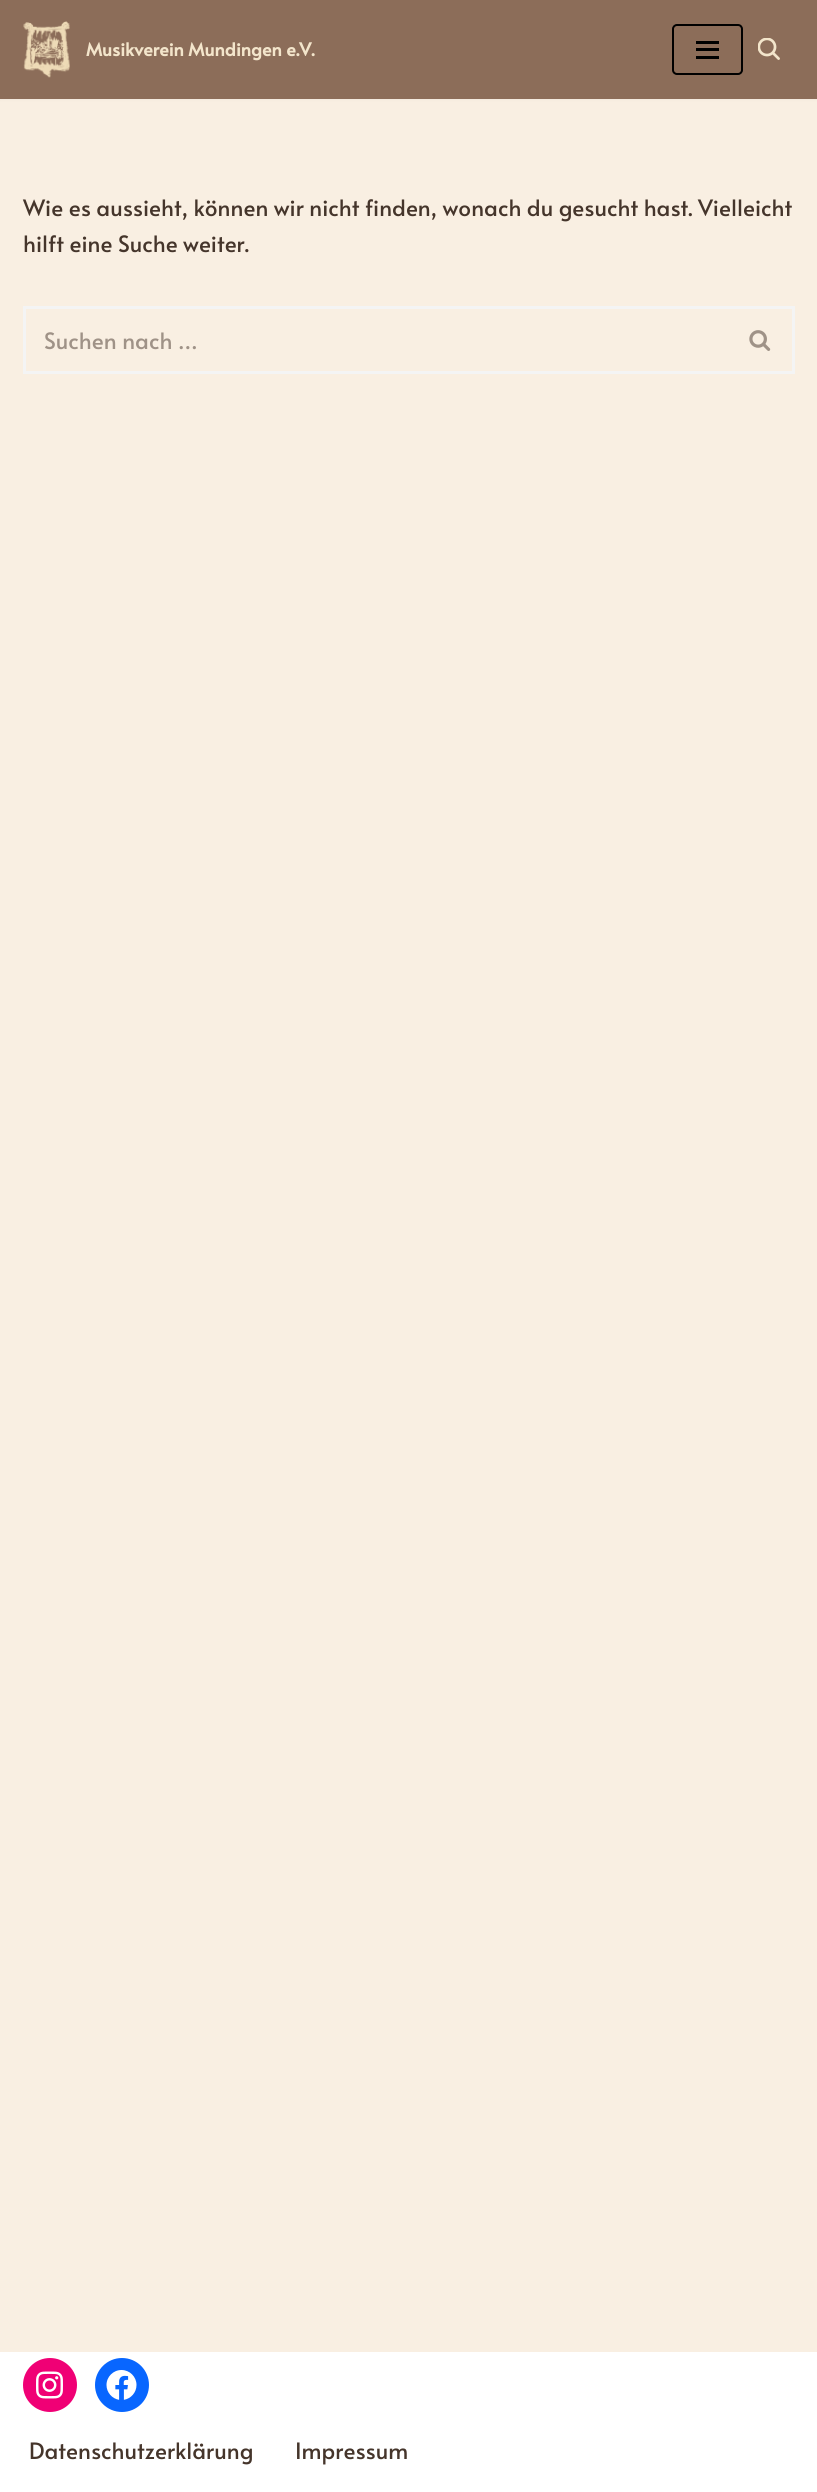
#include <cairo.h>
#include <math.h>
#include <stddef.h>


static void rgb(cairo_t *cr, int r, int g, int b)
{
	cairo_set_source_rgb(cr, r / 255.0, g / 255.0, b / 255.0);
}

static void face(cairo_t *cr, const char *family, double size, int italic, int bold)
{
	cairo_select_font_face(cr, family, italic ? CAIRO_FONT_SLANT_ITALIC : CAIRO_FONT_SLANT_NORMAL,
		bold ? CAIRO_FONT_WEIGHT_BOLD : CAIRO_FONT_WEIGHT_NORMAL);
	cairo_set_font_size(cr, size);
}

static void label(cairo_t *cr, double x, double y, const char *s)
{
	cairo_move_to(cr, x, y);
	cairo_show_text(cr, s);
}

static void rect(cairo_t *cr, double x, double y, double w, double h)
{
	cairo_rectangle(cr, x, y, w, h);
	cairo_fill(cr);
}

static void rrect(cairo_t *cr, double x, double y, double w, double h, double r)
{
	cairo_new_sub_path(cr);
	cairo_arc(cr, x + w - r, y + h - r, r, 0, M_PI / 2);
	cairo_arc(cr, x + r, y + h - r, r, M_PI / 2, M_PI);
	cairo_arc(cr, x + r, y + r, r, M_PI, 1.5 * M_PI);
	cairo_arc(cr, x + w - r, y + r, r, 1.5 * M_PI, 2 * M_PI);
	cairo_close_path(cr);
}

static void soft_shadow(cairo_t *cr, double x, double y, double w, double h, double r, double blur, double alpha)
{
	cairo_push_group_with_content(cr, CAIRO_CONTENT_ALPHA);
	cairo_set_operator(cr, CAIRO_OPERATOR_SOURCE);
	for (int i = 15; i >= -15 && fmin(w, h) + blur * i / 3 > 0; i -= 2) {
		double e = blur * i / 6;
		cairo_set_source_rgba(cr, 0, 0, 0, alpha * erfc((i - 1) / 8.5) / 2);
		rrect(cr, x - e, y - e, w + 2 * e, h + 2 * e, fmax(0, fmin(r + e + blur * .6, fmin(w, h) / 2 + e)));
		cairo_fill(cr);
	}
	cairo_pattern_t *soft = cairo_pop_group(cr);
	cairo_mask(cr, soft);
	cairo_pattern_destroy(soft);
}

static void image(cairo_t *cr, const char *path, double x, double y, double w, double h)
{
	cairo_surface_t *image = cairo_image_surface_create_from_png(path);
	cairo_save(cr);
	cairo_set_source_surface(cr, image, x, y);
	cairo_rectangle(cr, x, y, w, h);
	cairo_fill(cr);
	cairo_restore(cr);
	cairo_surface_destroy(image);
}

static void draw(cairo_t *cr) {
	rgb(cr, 249, 239, 226);
	cairo_paint(cr);
	rgb(cr, 0, 0, 0);
	soft_shadow(cr, 0, -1, 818, 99, 0, 2, 0.1);
	rgb(cr, 140, 109, 89);
	rect(cr, 0, 0, 817, 99);
	image(cr, "image0.png", 23, 21, 47, 57);
	face(cr, "Alata", 18, 0, 1);
	rgb(cr, 243, 229, 203);
	label(cr, 86, 56, "Musikverein Mundingen e.V.");
	rrect(cr, 673, 25, 69, 49, 4);
	rgb(cr, 0, 0, 0);
	cairo_stroke(cr);
	rect(cr, 696, 41, 23, 3);
	rect(cr, 696, 48, 23, 3);
	rect(cr, 696, 56, 23, 3);
	image(cr, "image1.png", 758, 38, 22, 22);
	face(cr, "Alata", 22.5, 0, 0);
	rgb(cr, 69, 53, 43);
	label(cr, 23, 216, "Wie es aussieht, können wir nicht finden, wonach du gesucht hast. Vielleicht");
	label(cr, 23, 252, "hilft eine Suche weiter.");
	rgb(cr, 244, 244, 244);
	rect(cr, 23, 306, 772, 3);
	rect(cr, 23, 371, 705, 3);
	rect(cr, 23, 306, 3, 68);
	rgb(cr, 159, 146, 135);
	label(cr, 44, 349, "Suchen nach …");
	rgb(cr, 244, 244, 244);
	rect(cr, 792, 306, 3, 68);
	rect(cr, 728, 371, 67, 3);
	image(cr, "image2.png", 749, 330, 22, 21);
	rgb(cr, 255, 255, 255);
	rect(cr, 0, 2352, 817, 140);
	rgb(cr, 240, 0, 117);
	cairo_arc(cr, 50, 2385, 27, 0, 2 * M_PI);
	cairo_fill(cr);
	image(cr, "image3.png", 36, 2371, 27, 28);
	rgb(cr, 8, 102, 255);
	cairo_arc(cr, 122, 2385, 27, 0, 2 * M_PI);
	cairo_fill(cr);
	image(cr, "image4.png", 106, 2370, 31, 30);
	rgb(cr, 69, 53, 43);
	label(cr, 29, 2459, "Datenschutzerklärung");
	label(cr, 295, 2459, "Impressum");
}

int main(void) {
	cairo_surface_t *surface = cairo_image_surface_create(CAIRO_FORMAT_RGB24, 817, 2492);
	cairo_t *cr = cairo_create(surface);
	cairo_font_options_t *options = cairo_font_options_create();
	cairo_font_options_set_hint_metrics(options, CAIRO_HINT_METRICS_OFF);
	cairo_font_options_set_hint_style(options, CAIRO_HINT_STYLE_NONE);
	cairo_set_font_options(cr, options);
	cairo_set_miter_limit(cr, 4);
	draw(cr);
	cairo_surface_write_to_png(surface, "render.png");
	cairo_font_options_destroy(options);
	cairo_destroy(cr);
	cairo_surface_destroy(surface);
	return 0;
}
